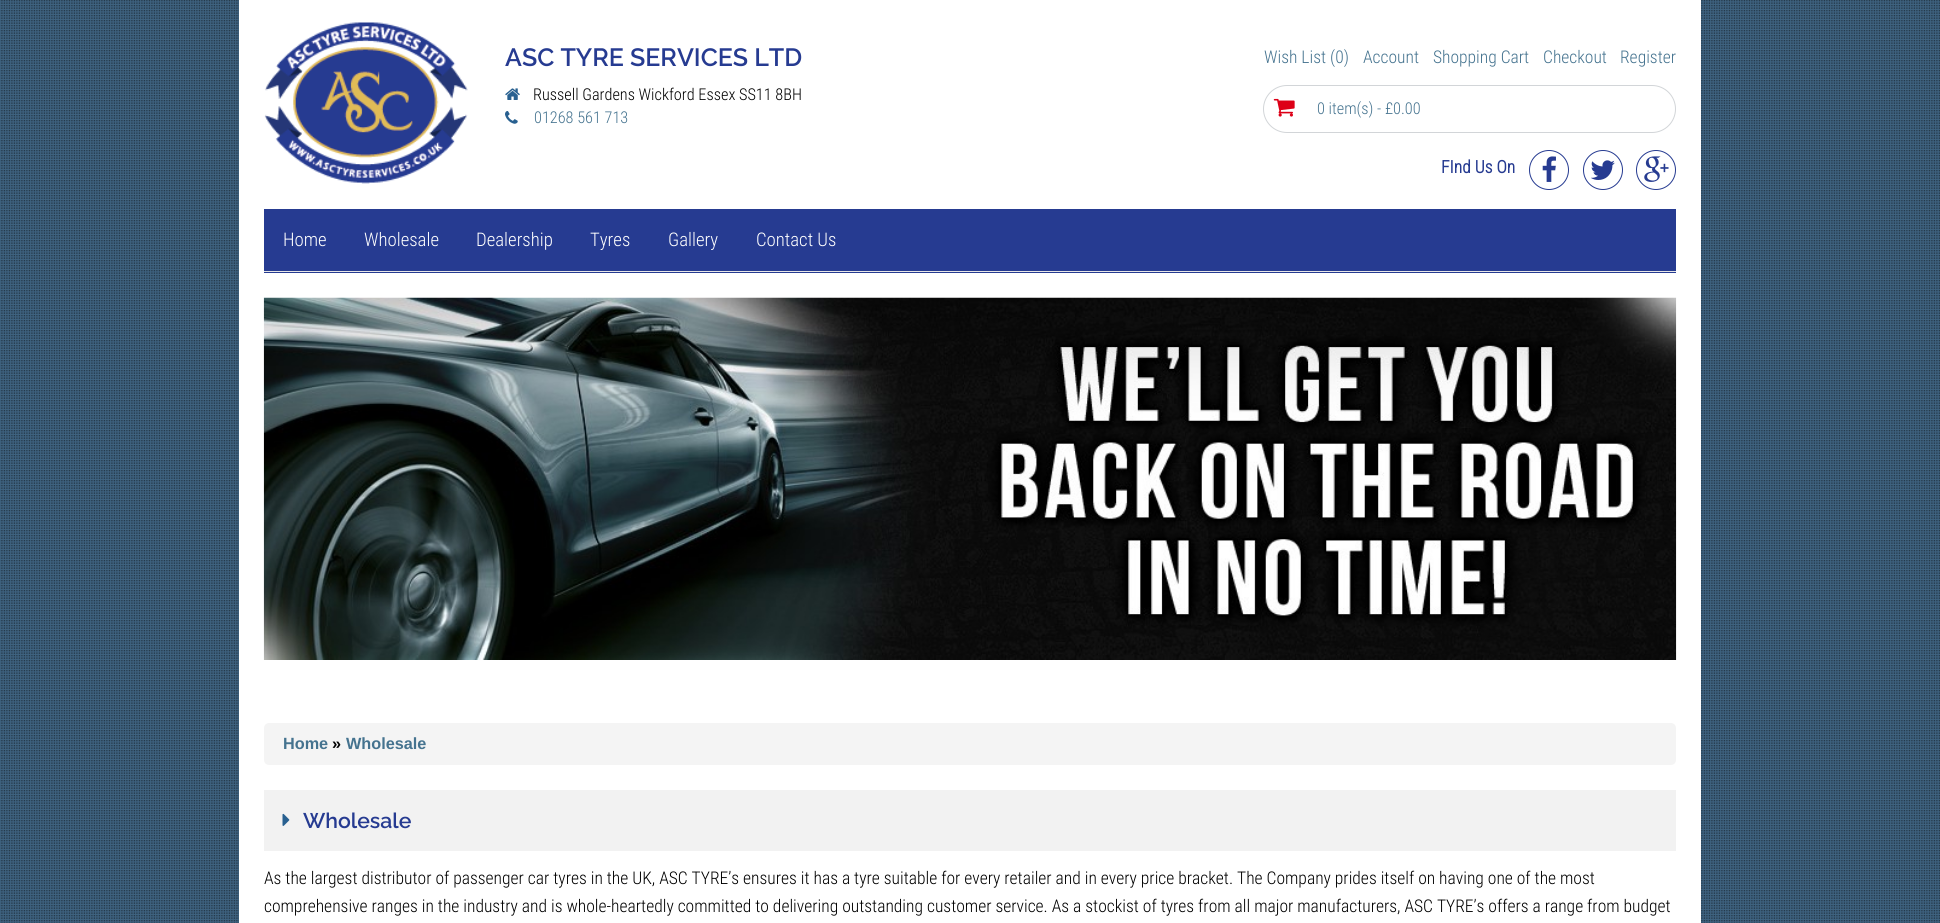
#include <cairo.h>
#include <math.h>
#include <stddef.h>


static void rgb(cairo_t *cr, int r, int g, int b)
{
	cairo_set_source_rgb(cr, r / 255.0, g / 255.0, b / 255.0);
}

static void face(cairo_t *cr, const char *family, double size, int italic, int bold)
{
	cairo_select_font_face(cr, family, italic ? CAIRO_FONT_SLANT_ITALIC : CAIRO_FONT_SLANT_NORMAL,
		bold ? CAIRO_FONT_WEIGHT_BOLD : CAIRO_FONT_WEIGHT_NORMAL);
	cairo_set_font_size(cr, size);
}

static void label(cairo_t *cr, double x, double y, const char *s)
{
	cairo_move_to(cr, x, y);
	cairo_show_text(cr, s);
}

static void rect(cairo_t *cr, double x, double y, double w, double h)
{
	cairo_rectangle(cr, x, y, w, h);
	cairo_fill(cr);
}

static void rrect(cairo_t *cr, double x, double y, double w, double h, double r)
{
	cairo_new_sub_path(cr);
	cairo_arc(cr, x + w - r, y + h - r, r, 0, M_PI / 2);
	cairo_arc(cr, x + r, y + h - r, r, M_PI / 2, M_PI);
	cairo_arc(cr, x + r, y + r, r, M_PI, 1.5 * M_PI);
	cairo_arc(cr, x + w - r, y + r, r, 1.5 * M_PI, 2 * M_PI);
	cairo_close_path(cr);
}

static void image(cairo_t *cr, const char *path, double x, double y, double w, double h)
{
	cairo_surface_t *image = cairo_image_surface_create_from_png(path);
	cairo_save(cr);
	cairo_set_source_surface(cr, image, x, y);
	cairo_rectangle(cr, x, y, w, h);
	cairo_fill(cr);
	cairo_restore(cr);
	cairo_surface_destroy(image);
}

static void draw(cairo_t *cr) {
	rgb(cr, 88, 139, 181);
	cairo_paint(cr);
	image(cr, "image0.png", 0, 0, 1940, 923);
	rgb(cr, 255, 255, 255);
	rect(cr, 239, 0, 1462, 923);
	image(cr, "image1.png", 264, 22, 204, 162);
	face(cr, "Raleway SemiBold", 25, 0, 0);
	rgb(cr, 38, 59, 145);
	label(cr, 505, 66, "ASC TYRE SERVICES LTD");
	image(cr, "image2.png", 505, 88, 15, 12);
	face(cr, "Roboto Condensed Light", 16.25, 0, 0);
	rgb(cr, 0, 0, 0);
	label(cr, 533, 100, "Russell Gardens Wickford Essex SS11 8BH");
	image(cr, "image3.png", 505, 111, 13, 13);
	rgb(cr, 69, 115, 143);
	label(cr, 534, 123, "01268 561 713");
	face(cr, "Roboto Condensed Light", 17.5, 0, 0);
	label(cr, 1264, 63, "Wish List (0)");
	label(cr, 1363, 63, "Account");
	label(cr, 1433, 63, "Shopping Cart");
	label(cr, 1543, 63, "Checkout");
	label(cr, 1620, 63, "Register");
	rrect(cr, 1263.5, 85.5, 412, 47, 23.5);
	rgb(cr, 210, 213, 216);
	cairo_set_line_width(cr, 1);
	cairo_stroke(cr);
	image(cr, "image4.png", 1273, 98, 22, 19);
	face(cr, "Roboto Condensed Light", 16.25, 0, 0);
	rgb(cr, 69, 115, 143);
	label(cr, 1317, 114, "0 item(s) - £0.00");
	face(cr, "Roboto Condensed", 17.5, 0, 1);
	rgb(cr, 38, 59, 145);
	label(cr, 1441, 173, "FInd Us On");
	cairo_new_path(cr);
	cairo_arc(cr, 1549, 170, 19.5, 0, 2 * M_PI);
	cairo_stroke(cr);
	image(cr, "image5.png", 1542, 156, 14, 26);
	cairo_arc(cr, 1603, 170, 19.5, 0, 2 * M_PI);
	cairo_stroke(cr);
	image(cr, "image6.png", 1591, 160, 24, 20);
	cairo_arc(cr, 1656, 170, 19.5, 0, 2 * M_PI);
	cairo_stroke(cr);
	image(cr, "image7.png", 1644, 156, 25, 26);
	rect(cr, 264, 209, 1412, 64);
	rgb(cr, 231, 231, 231);
	rect(cr, 264, 271, 1412, 1);
	face(cr, "Roboto Condensed Light", 18.75, 0, 0);
	rgb(cr, 255, 255, 255);
	label(cr, 283, 246, "Home");
	label(cr, 364, 246, "Wholesale");
	label(cr, 476, 246, "Dealership");
	label(cr, 590, 246, "Tyres");
	label(cr, 668, 246, "Gallery");
	label(cr, 756, 246, "Contact Us");
	image(cr, "image8.png", 263, 297, 1414, 363);
	rgb(cr, 244, 244, 244);
	rrect(cr, 264, 723, 1412, 42, 5);
	cairo_fill(cr);
	face(cr, "Liberation Sans", 16.25, 0, 1);
	rgb(cr, 69, 115, 143);
	label(cr, 283, 749, "Home");
	rgb(cr, 0, 0, 0);
	label(cr, 332, 749, "»");
	rgb(cr, 69, 115, 143);
	label(cr, 346, 749, "Wholesale");
	rgb(cr, 242, 242, 242);
	rect(cr, 264, 790, 1412, 61);
	image(cr, "image9.png", 282, 813, 8, 13);
	face(cr, "Raleway SemiBold", 21.25, 0, 0);
	rgb(cr, 38, 59, 145);
	label(cr, 303, 828, "Wholesale");
	face(cr, "Roboto Condensed Light", 17.5, 0, 0);
	rgb(cr, 0, 0, 0);
	label(cr, 264, 884, "As the largest distributor of passenger car tyres in the UK, ASC TYRE’s ensures it has a tyre suitable for every retailer and in every price bracket. The Company prides itself on having one of the most");
	label(cr, 264, 912, "comprehensive ranges in the industry and is whole-heartedly committed to delivering outstanding customer service. As a stockist of tyres from all major manufacturers, ASC TYRE’s offers a range from budget");
}

int main(void) {
	cairo_surface_t *surface = cairo_image_surface_create(CAIRO_FORMAT_RGB24, 1940, 923);
	cairo_t *cr = cairo_create(surface);
	cairo_font_options_t *options = cairo_font_options_create();
	cairo_font_options_set_hint_metrics(options, CAIRO_HINT_METRICS_OFF);
	cairo_font_options_set_hint_style(options, CAIRO_HINT_STYLE_NONE);
	cairo_set_font_options(cr, options);
	cairo_set_miter_limit(cr, 4);
	draw(cr);
	cairo_surface_write_to_png(surface, "render.png");
	cairo_font_options_destroy(options);
	cairo_destroy(cr);
	cairo_surface_destroy(surface);
	return 0;
}
